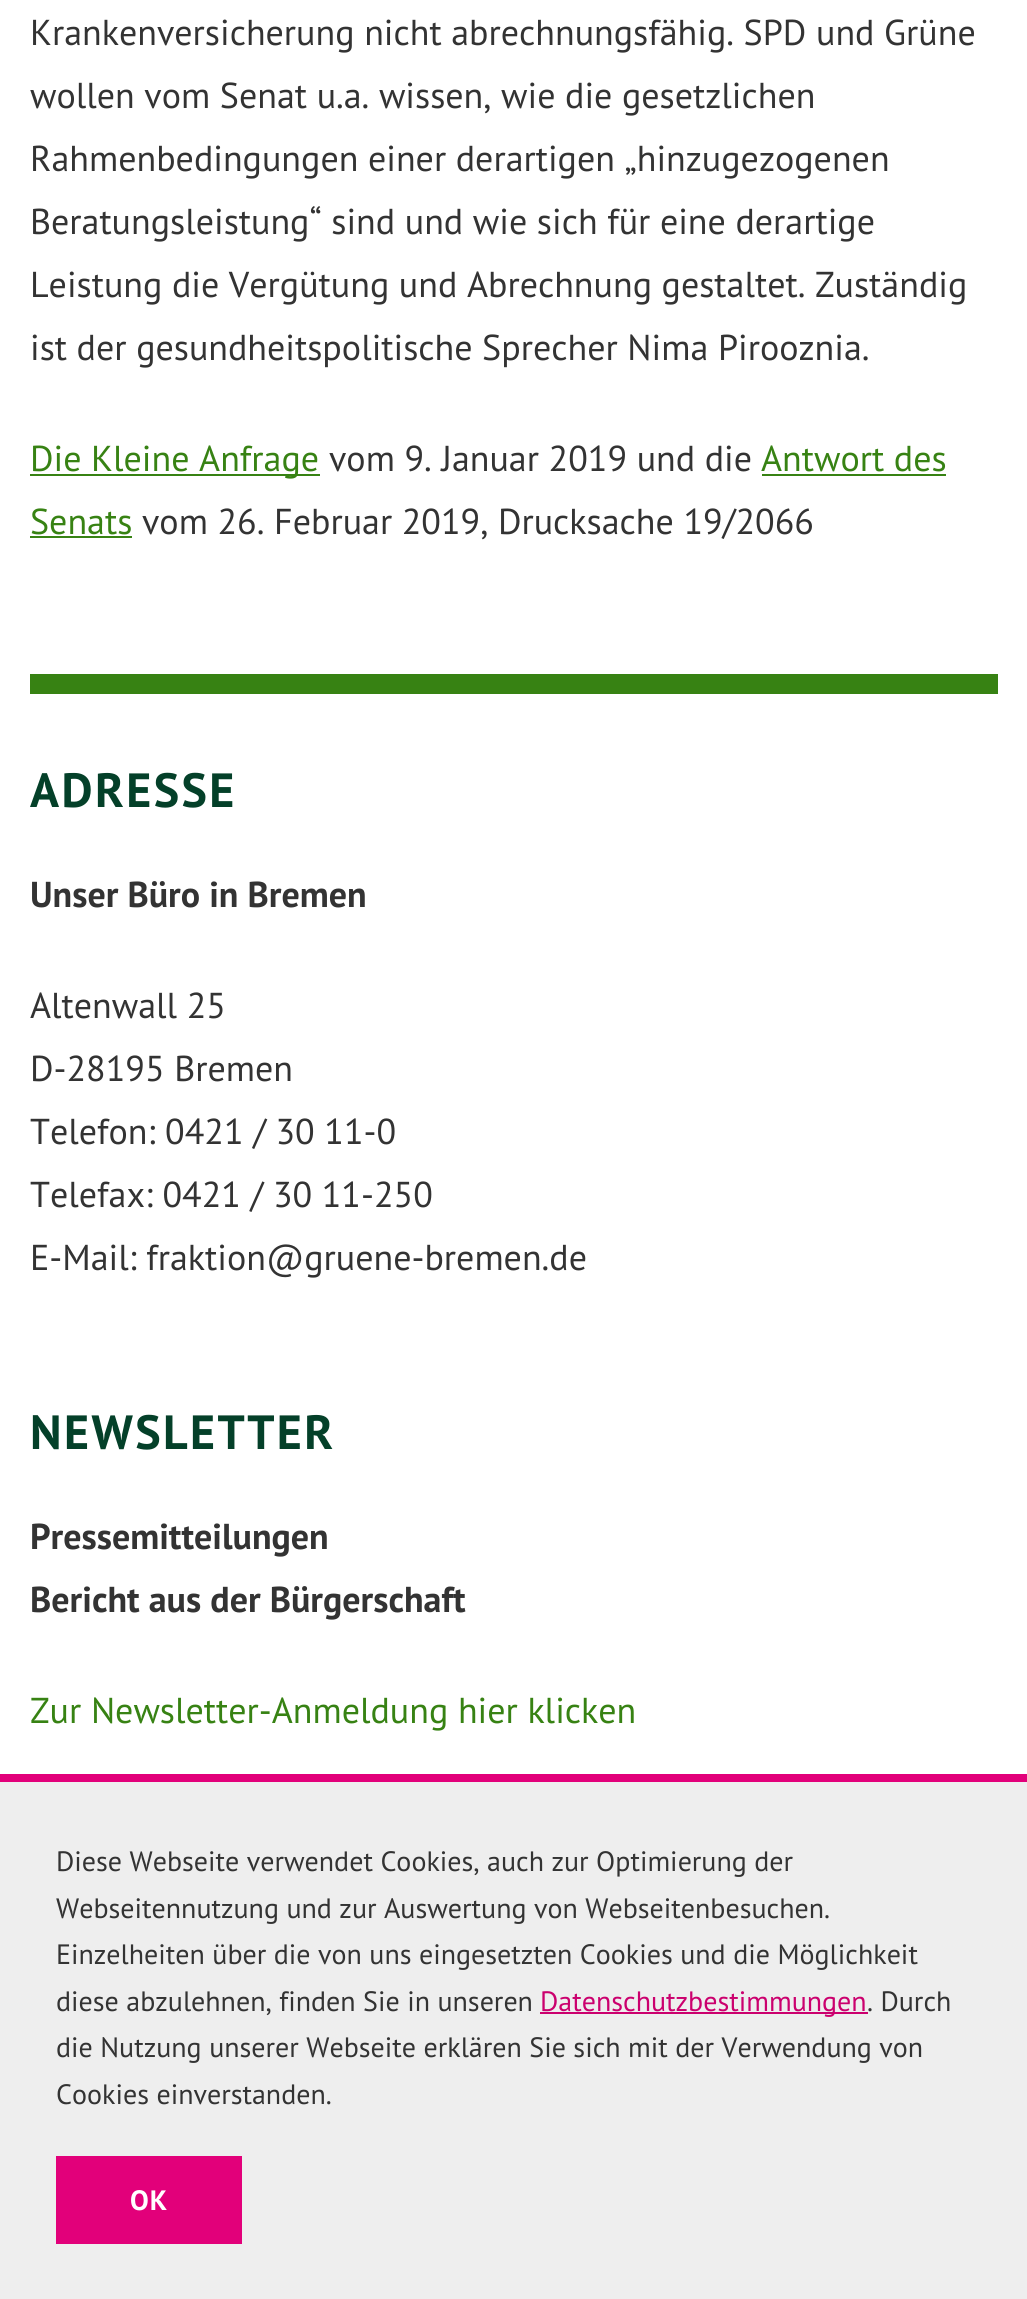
#include <cairo.h>
#include <math.h>
#include <stddef.h>


static void rgb(cairo_t *cr, int r, int g, int b)
{
	cairo_set_source_rgb(cr, r / 255.0, g / 255.0, b / 255.0);
}

static void face(cairo_t *cr, const char *family, double size, int italic, int bold)
{
	cairo_select_font_face(cr, family, italic ? CAIRO_FONT_SLANT_ITALIC : CAIRO_FONT_SLANT_NORMAL,
		bold ? CAIRO_FONT_WEIGHT_BOLD : CAIRO_FONT_WEIGHT_NORMAL);
	cairo_set_font_size(cr, size);
}

static void label(cairo_t *cr, double x, double y, const char *s)
{
	cairo_move_to(cr, x, y);
	cairo_show_text(cr, s);
}

static void tracked(cairo_t *cr, double x, double y, const char *s, double letter, double word)
{
	cairo_move_to(cr, x, y);
	while (*s) {
		char ch[5] = {0};
		int n = 0;
		do ch[n++] = *s++; while ((*s & 0xC0) == 0x80);
		cairo_show_text(cr, ch);
		cairo_rel_move_to(cr, letter + word * (*ch == ' '), 0);
	}
}

static void rect(cairo_t *cr, double x, double y, double w, double h)
{
	cairo_rectangle(cr, x, y, w, h);
	cairo_fill(cr);
}

static void draw(cairo_t *cr) {
	rgb(cr, 255, 255, 255);
	cairo_paint(cr);
	face(cr, "PT Sans", 36, 0, 0);
	rgb(cr, 51, 51, 51);
	label(cr, 30, 45, "Krankenversicherung nicht abrechnungsfähig. SPD und Grüne");
	label(cr, 30, 108, "wollen vom Senat u.a. wissen, wie die gesetzlichen");
	label(cr, 30, 171, "Rahmenbedingungen einer derartigen „hinzugezogenen");
	label(cr, 30, 234, "Beratungsleistung“ sind und wie sich für eine derartige");
	label(cr, 30, 297, "Leistung die Vergütung und Abrechnung gestaltet. Zuständig");
	label(cr, 30, 360, "ist der gesundheitspolitische Sprecher Nima Pirooznia.");
	rgb(cr, 55, 130, 19);
	rect(cr, 30, 474, 290, 2);
	label(cr, 30, 471, "Die Kleine Anfrage");
	rgb(cr, 51, 51, 51);
	label(cr, 329, 471, "vom 9. Januar 2019 und die");
	rgb(cr, 55, 130, 19);
	label(cr, 761, 471, "Antwort des");
	rect(cr, 762, 474, 184, 2);
	label(cr, 30, 534, "Senats");
	rect(cr, 30, 536, 102, 2);
	rgb(cr, 51, 51, 51);
	label(cr, 142, 534, "vom 26. Februar 2019, Drucksache 19/2066");
	rgb(cr, 55, 130, 19);
	rect(cr, 30, 674, 968, 20);
	face(cr, "PT Sans", 48, 0, 1);
	rgb(cr, 4, 64, 41);
	tracked(cr, 30, 807, "ADRESSE", 2.4, 0);
	face(cr, "PT Sans", 36, 0, 1);
	rgb(cr, 51, 51, 51);
	label(cr, 30, 907, "Unser Büro in Bremen");
	face(cr, "PT Sans", 36, 0, 0);
	label(cr, 30, 1018, "Altenwall 25");
	label(cr, 30, 1081, "D-28195 Bremen");
	label(cr, 30, 1144, "Telefon: 0421 / 30 11-0");
	label(cr, 30, 1207, "Telefax: 0421 / 30 11-250");
	label(cr, 30, 1270, "E-Mail: fraktion@gruene-bremen.de");
	face(cr, "PT Sans", 48, 0, 1);
	rgb(cr, 4, 64, 41);
	tracked(cr, 30, 1449, "NEWSLETTER", 2.4, 0);
	face(cr, "PT Sans", 36, 0, 1);
	rgb(cr, 51, 51, 51);
	label(cr, 30, 1549, "Pressemitteilungen");
	label(cr, 30, 1612, "Bericht aus der Bürgerschaft");
	face(cr, "PT Sans", 36, 0, 0);
	rgb(cr, 55, 130, 19);
	label(cr, 30, 1723, "Zur Newsletter-Anmeldung hier klicken");
	rgb(cr, 238, 238, 238);
	rect(cr, 0, 1782, 1027, 517);
	rgb(cr, 226, 0, 122);
	rect(cr, 0, 1774, 1027, 8);
	face(cr, "PT Sans", 28, 0, 0);
	rgb(cr, 51, 51, 51);
	label(cr, 56, 1871, "Diese Webseite verwendet Cookies, auch zur Optimierung der");
	label(cr, 56, 1918, "Webseitennutzung und zur Auswertung von Webseitenbesuchen.");
	label(cr, 56, 1964, "Einzelheiten über die von uns eingesetzten Cookies und die Möglichkeit");
	label(cr, 56, 2011, "diese abzulehnen, finden Sie in unseren");
	rgb(cr, 203, 0, 110);
	rect(cr, 540, 2012, 328, 2);
	label(cr, 540, 2011, "Datenschutzbestimmungen");
	rgb(cr, 51, 51, 51);
	label(cr, 867, 2011, ". Durch");
	label(cr, 56, 2057, "die Nutzung unserer Webseite erklären Sie sich mit der Verwendung von");
	label(cr, 56, 2104, "Cookies einverstanden.");
	rgb(cr, 226, 0, 122);
	rect(cr, 56, 2156, 186, 88);
	face(cr, "PT Sans", 28, 0, 1);
	rgb(cr, 255, 255, 255);
	tracked(cr, 130, 2210, "OK", 1, 0);
}

int main(void) {
	cairo_surface_t *surface = cairo_image_surface_create(CAIRO_FORMAT_RGB24, 1027, 2299);
	cairo_t *cr = cairo_create(surface);
	cairo_font_options_t *options = cairo_font_options_create();
	cairo_font_options_set_hint_metrics(options, CAIRO_HINT_METRICS_OFF);
	cairo_font_options_set_hint_style(options, CAIRO_HINT_STYLE_NONE);
	cairo_set_font_options(cr, options);
	cairo_set_miter_limit(cr, 4);
	draw(cr);
	cairo_surface_write_to_png(surface, "render.png");
	cairo_font_options_destroy(options);
	cairo_destroy(cr);
	cairo_surface_destroy(surface);
	return 0;
}
